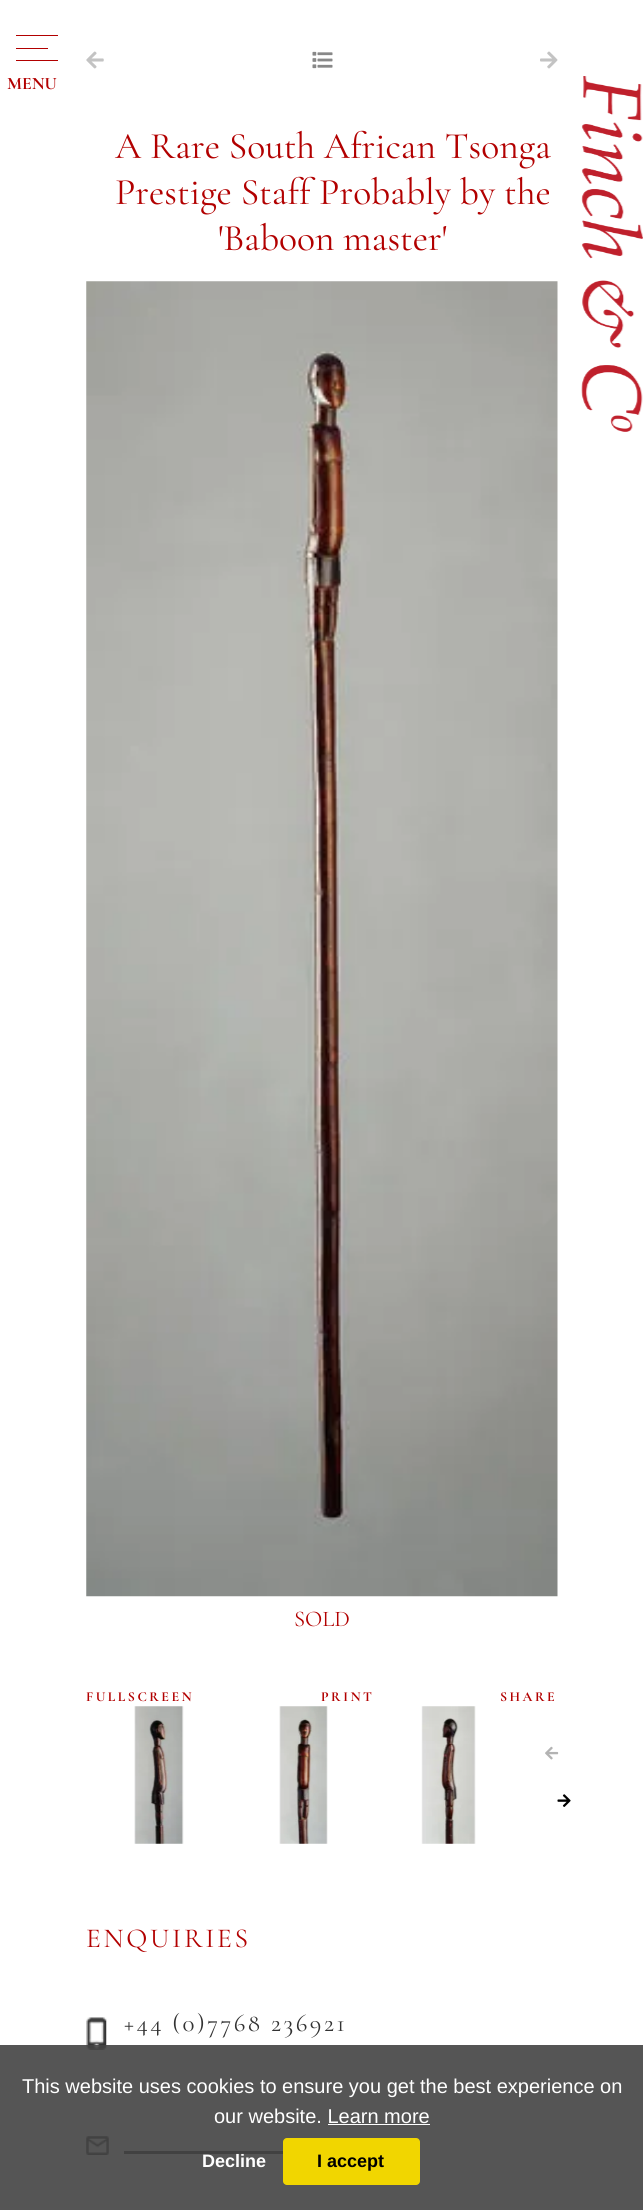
#include <cairo.h>
#include <math.h>
#include <stddef.h>


static void rgb(cairo_t *cr, int r, int g, int b)
{
	cairo_set_source_rgb(cr, r / 255.0, g / 255.0, b / 255.0);
}

static void face(cairo_t *cr, const char *family, double size, int italic, int bold)
{
	cairo_select_font_face(cr, family, italic ? CAIRO_FONT_SLANT_ITALIC : CAIRO_FONT_SLANT_NORMAL,
		bold ? CAIRO_FONT_WEIGHT_BOLD : CAIRO_FONT_WEIGHT_NORMAL);
	cairo_set_font_size(cr, size);
}

static void label(cairo_t *cr, double x, double y, const char *s)
{
	cairo_move_to(cr, x, y);
	cairo_show_text(cr, s);
}

static void tracked(cairo_t *cr, double x, double y, const char *s, double letter, double word)
{
	cairo_move_to(cr, x, y);
	while (*s) {
		char ch[5] = {0};
		int n = 0;
		do ch[n++] = *s++; while ((*s & 0xC0) == 0x80);
		cairo_show_text(cr, ch);
		cairo_rel_move_to(cr, letter + word * (*ch == ' '), 0);
	}
}

static void rect(cairo_t *cr, double x, double y, double w, double h)
{
	cairo_rectangle(cr, x, y, w, h);
	cairo_fill(cr);
}

static void rrect(cairo_t *cr, double x, double y, double w, double h, double r)
{
	cairo_new_sub_path(cr);
	cairo_arc(cr, x + w - r, y + h - r, r, 0, M_PI / 2);
	cairo_arc(cr, x + r, y + h - r, r, M_PI / 2, M_PI);
	cairo_arc(cr, x + r, y + r, r, M_PI, 1.5 * M_PI);
	cairo_arc(cr, x + w - r, y + r, r, 1.5 * M_PI, 2 * M_PI);
	cairo_close_path(cr);
}

static void image(cairo_t *cr, const char *path, double x, double y, double w, double h)
{
	cairo_surface_t *image = cairo_image_surface_create_from_png(path);
	cairo_save(cr);
	cairo_set_source_surface(cr, image, x, y);
	cairo_rectangle(cr, x, y, w, h);
	cairo_fill(cr);
	cairo_restore(cr);
	cairo_surface_destroy(image);
}

static void draw(cairo_t *cr) {
	rgb(cr, 255, 255, 255);
	cairo_paint(cr);
	rgb(cr, 178, 0, 0);
	rect(cr, 16, 48, 32, 1);
	rect(cr, 16, 35, 42, 1);
	rect(cr, 16, 60, 42, 1);
	face(cr, "Cormorant Garamond", 17.5, 0, 1);
	label(cr, 7, 89, "MENU");
	image(cr, "image0.png", 581, 76, 62, 356);
	image(cr, "image1.png", 86, 51, 18, 18);
	image(cr, "image2.png", 312, 51, 21, 18);
	image(cr, "image3.png", 540, 51, 18, 18);
	face(cr, "Cormorant Garamond", 37.5, 0, 0);
	label(cr, 115, 158, "A Rare South African Tsonga");
	label(cr, 115, 204, "Prestige Staff Probably by the");
	label(cr, 218, 250, "'Baboon master'");
	image(cr, "image4.png", 86, 281, 472, 1316);
	face(cr, "Cormorant Garamond", 22.5, 0, 0);
	label(cr, 294, 1626, "SOLD");
	face(cr, "Cormorant Garamond", 13.75, 0, 1);
	tracked(cr, 86, 1701, "FULLSCREEN", 2.5, 0);
	tracked(cr, 321, 1701, "PRINT", 2.5, 0);
	tracked(cr, 500, 1701, "SHARE", 2.5, 0);
	image(cr, "image5.png", 134, 1706, 50, 138);
	image(cr, "image6.png", 279, 1706, 49, 138);
	image(cr, "image7.png", 421, 1706, 55, 138);
	image(cr, "image8.png", 545, 1746, 14, 14);
	image(cr, "image9.png", 557, 1794, 14, 13);
	face(cr, "Cormorant Garamond", 27.5, 0, 0);
	tracked(cr, 86, 1947, "ENQUIRIES", 2.75, 0);
	image(cr, "image10.png", 86, 2017, 21, 33);
	face(cr, "Cormorant Garamond", 25, 0, 0);
	rgb(cr, 51, 51, 51);
	tracked(cr, 124, 2031, "+44 (0)7768 236921", 2.5, 0);
	image(cr, "image11.png", 86, 2136, 23, 19);
	rect(cr, 124, 2151, 159, 3);
	cairo_set_source_rgba(cr, 0.263, 0.263, 0.263, 0.9);
	rect(cr, 0, 2045, 643, 165);
	face(cr, "Liberation Sans", 20, 0, 0);
	rgb(cr, 255, 255, 255);
	label(cr, 22, 2093, "This website uses cookies to ensure you get the best experience on");
	label(cr, 214, 2123, "our website. Learn more");
	rect(cr, 328, 2124, 102, 1);
	face(cr, "Liberation Sans", 18, 0, 1);
	label(cr, 202, 2167, "Decline");
	rgb(cr, 241, 214, 0);
	rrect(cr, 283, 2138, 137, 47, 4);
	cairo_fill(cr);
	rgb(cr, 0, 0, 0);
	label(cr, 317, 2167, "I accept");
}

int main(void) {
	cairo_surface_t *surface = cairo_image_surface_create(CAIRO_FORMAT_RGB24, 643, 2210);
	cairo_t *cr = cairo_create(surface);
	cairo_font_options_t *options = cairo_font_options_create();
	cairo_font_options_set_hint_metrics(options, CAIRO_HINT_METRICS_OFF);
	cairo_font_options_set_hint_style(options, CAIRO_HINT_STYLE_NONE);
	cairo_set_font_options(cr, options);
	cairo_set_miter_limit(cr, 4);
	draw(cr);
	cairo_surface_write_to_png(surface, "render.png");
	cairo_font_options_destroy(options);
	cairo_destroy(cr);
	cairo_surface_destroy(surface);
	return 0;
}
